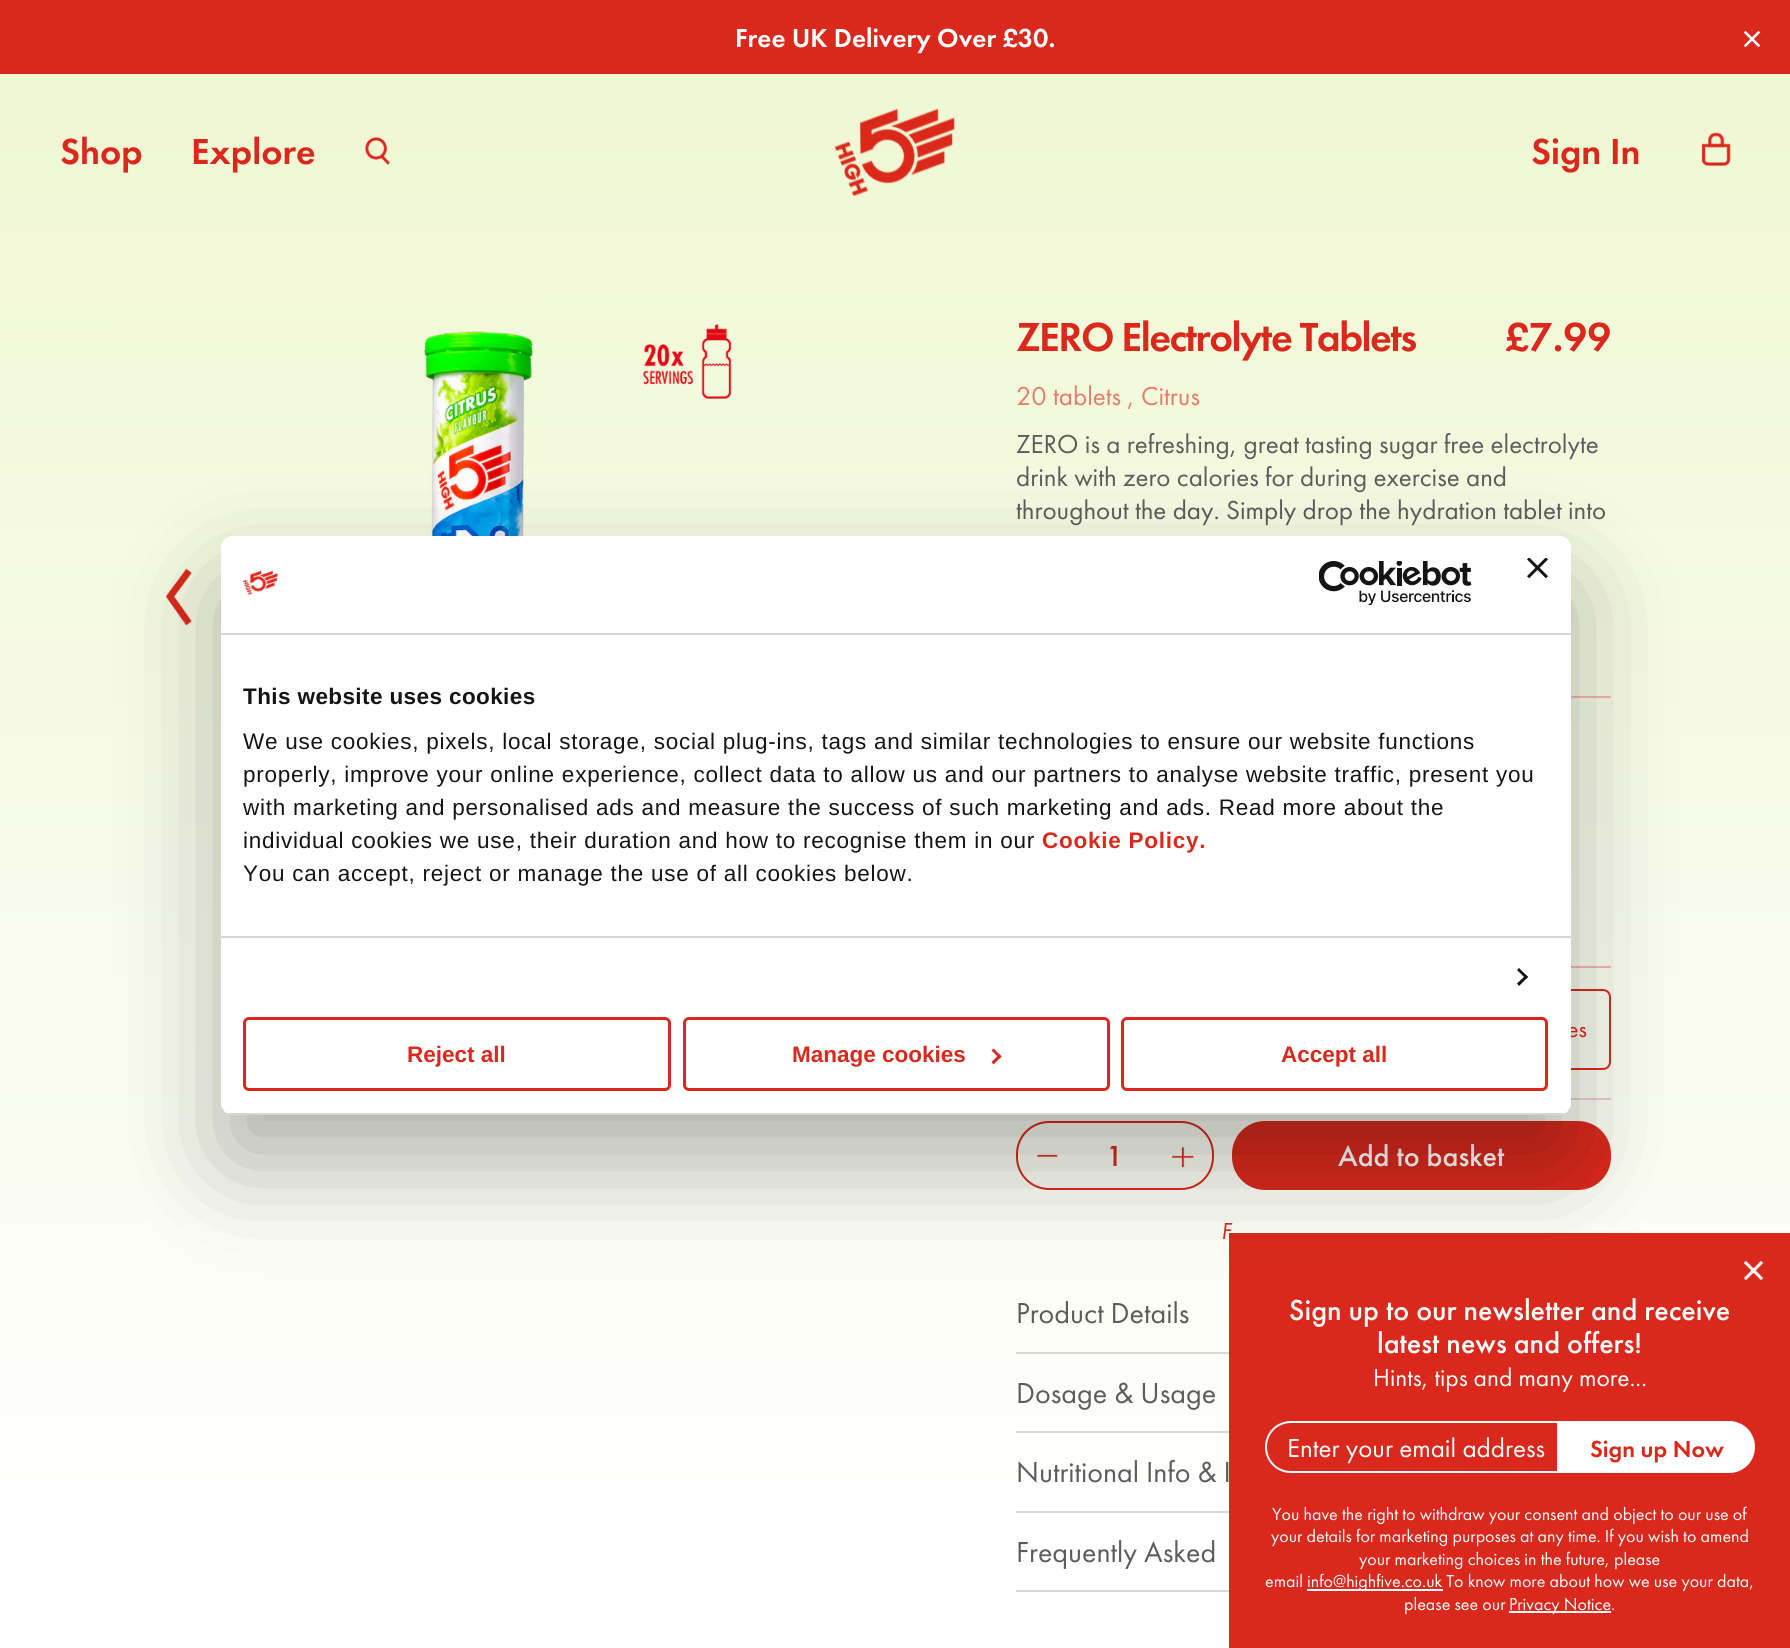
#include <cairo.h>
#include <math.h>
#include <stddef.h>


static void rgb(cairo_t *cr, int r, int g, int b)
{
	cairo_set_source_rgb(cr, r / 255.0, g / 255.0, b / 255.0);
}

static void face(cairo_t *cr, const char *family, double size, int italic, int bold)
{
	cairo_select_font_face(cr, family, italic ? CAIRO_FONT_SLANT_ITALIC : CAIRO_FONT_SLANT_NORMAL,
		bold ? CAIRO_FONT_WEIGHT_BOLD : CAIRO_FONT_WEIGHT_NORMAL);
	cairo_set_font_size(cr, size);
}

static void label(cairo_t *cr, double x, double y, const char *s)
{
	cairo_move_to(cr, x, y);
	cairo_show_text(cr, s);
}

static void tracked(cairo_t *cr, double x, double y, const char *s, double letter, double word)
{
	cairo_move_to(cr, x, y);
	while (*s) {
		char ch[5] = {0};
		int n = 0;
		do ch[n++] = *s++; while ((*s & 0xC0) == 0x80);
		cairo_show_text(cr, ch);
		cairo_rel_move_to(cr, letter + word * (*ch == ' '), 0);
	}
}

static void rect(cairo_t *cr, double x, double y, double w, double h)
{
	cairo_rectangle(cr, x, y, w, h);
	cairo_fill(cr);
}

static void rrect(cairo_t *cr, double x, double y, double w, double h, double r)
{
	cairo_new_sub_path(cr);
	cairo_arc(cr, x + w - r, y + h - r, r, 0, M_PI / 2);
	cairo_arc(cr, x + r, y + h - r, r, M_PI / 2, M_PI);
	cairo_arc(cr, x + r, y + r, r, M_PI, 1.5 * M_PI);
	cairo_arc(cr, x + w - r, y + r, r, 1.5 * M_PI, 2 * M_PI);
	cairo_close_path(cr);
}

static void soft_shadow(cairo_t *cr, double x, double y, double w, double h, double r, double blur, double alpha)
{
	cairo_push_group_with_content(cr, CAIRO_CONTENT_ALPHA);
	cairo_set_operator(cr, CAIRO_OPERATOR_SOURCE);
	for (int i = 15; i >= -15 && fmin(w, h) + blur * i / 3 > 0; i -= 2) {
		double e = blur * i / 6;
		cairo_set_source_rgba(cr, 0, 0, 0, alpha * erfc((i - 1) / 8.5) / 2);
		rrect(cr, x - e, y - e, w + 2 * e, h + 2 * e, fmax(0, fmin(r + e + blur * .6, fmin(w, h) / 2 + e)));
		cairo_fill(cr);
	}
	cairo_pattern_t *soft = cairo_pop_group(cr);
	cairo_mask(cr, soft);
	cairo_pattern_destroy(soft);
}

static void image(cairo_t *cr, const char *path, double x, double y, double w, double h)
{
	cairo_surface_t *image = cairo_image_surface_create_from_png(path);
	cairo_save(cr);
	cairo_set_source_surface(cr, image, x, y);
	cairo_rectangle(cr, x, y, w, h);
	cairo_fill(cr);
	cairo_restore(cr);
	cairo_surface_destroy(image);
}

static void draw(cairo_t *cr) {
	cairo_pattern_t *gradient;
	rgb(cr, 255, 255, 255);
	cairo_paint(cr);
	rgb(cr, 218, 41, 28);
	rect(cr, 0, 0, 1790, 74);
	face(cr, "Futura PT Medium", 27, 0, 0);
	rgb(cr, 255, 255, 255);
	label(cr, 735, 47, "Free UK Delivery Over £30.");
	image(cr, "image0.png", 1743, 30, 18, 18);
	gradient = cairo_pattern_create_linear(895, 73, 896, 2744);
	cairo_pattern_add_color_stop_rgba(gradient, 0, 0.941, 0.969, 0.827, 1);
	cairo_pattern_add_color_stop_rgba(gradient, 0.56, 1, 1, 1, 1);
	cairo_set_source(cr, gradient);
	cairo_pattern_destroy(gradient);
	rect(cr, 0, 74, 1790, 1410);
	face(cr, "Futura PT Medium", 37.5, 0, 0);
	rgb(cr, 218, 41, 28);
	label(cr, 60, 164, "Shop");
	label(cr, 191, 164, "Explore");
	image(cr, "image1.png", 365, 137, 25, 28);
	image(cr, "image2.png", 834, 108, 121, 89);
	label(cr, 1531, 164, "Sign In");
	image(cr, "image3.png", 1701, 132, 30, 34);
	image(cr, "image4.png", 424, 324, 308, 212);
	image(cr, "image5.png", 165, 568, 27, 58);
	face(cr, "Futura PT Medium", 42, 0, 0);
	tracked(cr, 1016, 351, "ZERO Electrolyte Tablets", -1.5, 0);
	label(cr, 1505, 351, "£7.99");
	face(cr, "Futura PT", 27, 0, 0);
	rgb(cr, 228, 124, 105);
	label(cr, 1016, 405, "20 tablets , Citrus");
	rgb(cr, 92, 92, 92);
	label(cr, 1016, 453, "ZERO is a refreshing, great tasting sugar free electrolyte");
	label(cr, 1016, 486, "drink with zero calories for during exercise and");
	label(cr, 1016, 519, "throughout the day. Simply drop the hydration tablet into");
	rgb(cr, 245, 184, 179);
	rect(cr, 1571, 696, 40, 2);
	rect(cr, 1571, 966, 40, 2);
	rrect(cr, 1330, 990, 280, 79, 7);
	rgb(cr, 218, 41, 28);
	cairo_stroke(cr);
	face(cr, "Futura PT", 24, 0, 0);
	label(cr, 1567, 1037, "es");
	rgb(cr, 237, 203, 214);
	rect(cr, 1571, 1098, 40, 2);
	rrect(cr, 1017, 1122, 196, 67, 32);
	rgb(cr, 218, 41, 28);
	cairo_stroke(cr);
	image(cr, "image6.png", 1037, 1154, 21, 4);
	face(cr, "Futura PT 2 Medium", 30, 0, 0);
	label(cr, 1106, 1166, "1");
	image(cr, "image7.png", 1172, 1146, 22, 22);
	rrect(cr, 1233, 1122, 377, 67, 32);
	cairo_fill_preserve(cr);
	cairo_stroke(cr);
	rgb(cr, 255, 255, 255);
	label(cr, 1338, 1166, "Add to basket");
	face(cr, "Futura PT", 24, 1, 0);
	rgb(cr, 218, 41, 28);
	label(cr, 1221, 1239, "F");
	rgb(cr, 216, 216, 216);
	rect(cr, 1016, 1352, 213, 2);
	face(cr, "Futura PT", 30, 0, 0);
	rgb(cr, 92, 92, 92);
	label(cr, 1016, 1323, "Product Details");
	rgb(cr, 216, 216, 216);
	rect(cr, 1016, 1431, 213, 2);
	rgb(cr, 92, 92, 92);
	label(cr, 1016, 1403, "Dosage & Usage");
	rgb(cr, 216, 216, 216);
	rect(cr, 1016, 1511, 213, 2);
	rgb(cr, 92, 92, 92);
	label(cr, 1016, 1482, "Nutritional Info & I");
	rgb(cr, 216, 216, 216);
	rect(cr, 1016, 1590, 213, 2);
	rgb(cr, 92, 92, 92);
	label(cr, 1016, 1562, "Frequently Asked");
	rgb(cr, 218, 41, 28);
	rect(cr, 1229, 1233, 561, 415);
	rgb(cr, 0, 0, 0);
	soft_shadow(cr, 221, 584, 1350, 579, 12, 51, 0.3);
	rgb(cr, 255, 255, 255);
	rrect(cr, 221, 536, 1350, 579, 12);
	cairo_fill(cr);
	rgb(cr, 214, 214, 214);
	rect(cr, 221, 633, 1350, 2);
	image(cr, "image8.png", 243, 570, 35, 26);
	image(cr, "image9.png", 1319, 561, 153, 45);
	image(cr, "image10.png", 1527, 558, 21, 21);
	rect(cr, 221, 936, 1350, 2);
	face(cr, "Liberation Sans", 22.5, 0, 1);
	rgb(cr, 20, 20, 20);
	tracked(cr, 243, 704, "This website uses cookies", 0.4, 0);
	face(cr, "Liberation Sans", 22.5, 0, 0);
	tracked(cr, 243, 749, "We use cookies, pixels, local storage, social plug-ins, tags and similar technologies to ensure our website functions", 0.75, 0);
	tracked(cr, 243, 782, "properly, improve your online experience, collect data to allow us and our partners to analyse website traffic, present you", 0.75, 0);
	tracked(cr, 243, 815, "with marketing and personalised ads and measure the success of such marketing and ads. Read more about the", 0.75, 0);
	tracked(cr, 243, 848, "individual cookies we use, their duration and how to recognise them in our", 0.75, 0);
	face(cr, "Liberation Sans", 22.5, 0, 1);
	rgb(cr, 218, 41, 28);
	tracked(cr, 1042, 848, "Cookie Policy.", 0.75, 0);
	face(cr, "Liberation Sans", 22.5, 0, 0);
	rgb(cr, 20, 20, 20);
	tracked(cr, 243, 881, "You can accept, reject or manage the use of all cookies below.", 0.75, 0);
	cairo_new_path(cr);
	cairo_move_to(cr, 1519, 968);
	cairo_line_to(cr, 1528, 977);
	cairo_line_to(cr, 1526, 979);
	cairo_line_to(cr, 1517, 970);
	cairo_close_path(cr);
	cairo_fill(cr);
	cairo_new_path(cr);
	cairo_move_to(cr, 1526, 975);
	cairo_line_to(cr, 1528, 977);
	cairo_line_to(cr, 1519, 986);
	cairo_line_to(cr, 1517, 983.5);
	cairo_close_path(cr);
	cairo_fill(cr);
	cairo_save(cr);
	rrect(cr, 221, 536, 1350, 579, 12);
	cairo_clip(cr);
	rgb(cr, 214, 214, 214);
	rect(cr, 221, 1113, 1350, 2);
	cairo_restore(cr);
	rrect(cr, 244.5, 1018.5, 425, 71, 4.5);
	rgb(cr, 218, 41, 28);
	cairo_set_line_width(cr, 3);
	cairo_stroke(cr);
	face(cr, "Liberation Sans", 22.5, 0, 1);
	label(cr, 407, 1062, "Reject all");
	rrect(cr, 684.5, 1018.5, 424, 71, 4.5);
	cairo_stroke(cr);
	label(cr, 792, 1062, "Manage cookies");
	cairo_new_path(cr);
	cairo_move_to(cr, 993.5, 1048.5);
	cairo_line_to(cr, 1001.5, 1056.5);
	cairo_line_to(cr, 999.5, 1058.5);
	cairo_line_to(cr, 991.5, 1050.5);
	cairo_close_path(cr);
	cairo_fill(cr);
	cairo_new_path(cr);
	cairo_move_to(cr, 999.5, 1054);
	cairo_line_to(cr, 1001.5, 1056.5);
	cairo_line_to(cr, 993.5, 1064.5);
	cairo_line_to(cr, 991.5, 1062);
	cairo_close_path(cr);
	cairo_fill(cr);
	rrect(cr, 1122.5, 1018.5, 424, 71, 4.5);
	cairo_stroke(cr);
	label(cr, 1281, 1062, "Accept all");
	image(cr, "image11.png", 1743, 1260, 21, 21);
	face(cr, "Futura PT 2 Medium", 30, 0, 0);
	rgb(cr, 255, 255, 255);
	label(cr, 1289, 1320, "Sign up to our newsletter and receive");
	label(cr, 1377, 1353, "latest news and offers!");
	face(cr, "Futura PT", 25.5, 0, 0);
	label(cr, 1373, 1386, "Hints, tips and many more...");
	cairo_new_path(cr);
	cairo_move_to(cr, 1291, 1422);
	cairo_line_to(cr, 1558, 1422);
	cairo_line_to(cr, 1558, 1472);
	cairo_line_to(cr, 1291, 1472);
	cairo_curve_to(cr, 1277, 1472, 1266, 1461, 1266, 1447);
	cairo_curve_to(cr, 1266, 1433, 1277, 1422, 1291, 1422);
	cairo_close_path(cr);
	cairo_set_line_width(cr, 2);
	cairo_stroke(cr);
	face(cr, "Futura PT", 27, 0, 0);
	label(cr, 1287, 1457, "Enter your email address");
	cairo_new_path(cr);
	cairo_move_to(cr, 1560, 1422);
	cairo_line_to(cr, 1729, 1422);
	cairo_curve_to(cr, 1743, 1422, 1754, 1433, 1754, 1447);
	cairo_curve_to(cr, 1754, 1461, 1743, 1472, 1729, 1472);
	cairo_line_to(cr, 1560, 1472);
	cairo_close_path(cr);
	cairo_fill_preserve(cr);
	cairo_stroke(cr);
	face(cr, "Futura PT Medium", 24, 0, 0);
	rgb(cr, 218, 41, 28);
	label(cr, 1590, 1457, "Sign up Now");
	face(cr, "Futura PT", 18, 0, 0);
	rgb(cr, 255, 255, 255);
	label(cr, 1272, 1520, "You have the right to withdraw your consent and object to our use of");
	label(cr, 1271, 1542, "your details for marketing purposes at any time. If you wish to amend");
	label(cr, 1359, 1565, "your marketing choices in the future, please");
	label(cr, 1265, 1587, "email");
	rect(cr, 1307, 1589, 136, 2);
	label(cr, 1307, 1587, "info@highfive.co.uk To know more about how we use your data,");
	label(cr, 1404, 1610, "please see our");
	rect(cr, 1509, 1611, 102, 2);
	label(cr, 1509, 1610, "Privacy Notice.");
}

int main(void) {
	cairo_surface_t *surface = cairo_image_surface_create(CAIRO_FORMAT_RGB24, 1790, 1648);
	cairo_t *cr = cairo_create(surface);
	cairo_font_options_t *options = cairo_font_options_create();
	cairo_font_options_set_hint_metrics(options, CAIRO_HINT_METRICS_OFF);
	cairo_font_options_set_hint_style(options, CAIRO_HINT_STYLE_NONE);
	cairo_set_font_options(cr, options);
	cairo_set_miter_limit(cr, 4);
	draw(cr);
	cairo_surface_write_to_png(surface, "render.png");
	cairo_font_options_destroy(options);
	cairo_destroy(cr);
	cairo_surface_destroy(surface);
	return 0;
}
